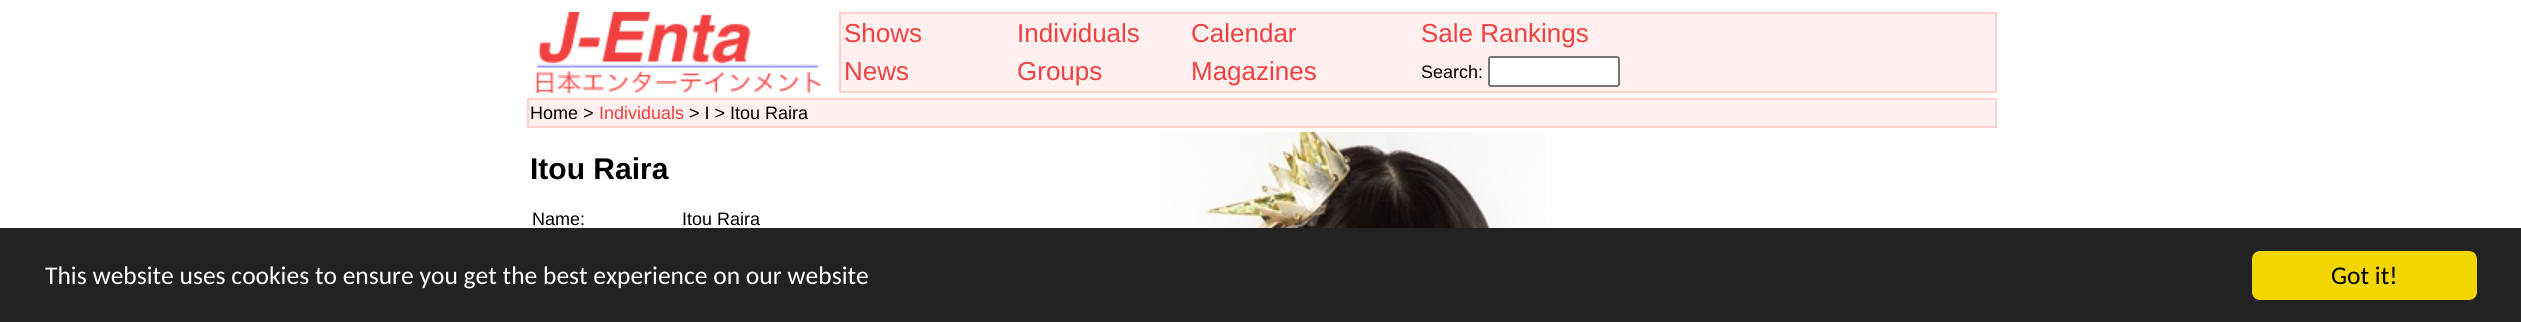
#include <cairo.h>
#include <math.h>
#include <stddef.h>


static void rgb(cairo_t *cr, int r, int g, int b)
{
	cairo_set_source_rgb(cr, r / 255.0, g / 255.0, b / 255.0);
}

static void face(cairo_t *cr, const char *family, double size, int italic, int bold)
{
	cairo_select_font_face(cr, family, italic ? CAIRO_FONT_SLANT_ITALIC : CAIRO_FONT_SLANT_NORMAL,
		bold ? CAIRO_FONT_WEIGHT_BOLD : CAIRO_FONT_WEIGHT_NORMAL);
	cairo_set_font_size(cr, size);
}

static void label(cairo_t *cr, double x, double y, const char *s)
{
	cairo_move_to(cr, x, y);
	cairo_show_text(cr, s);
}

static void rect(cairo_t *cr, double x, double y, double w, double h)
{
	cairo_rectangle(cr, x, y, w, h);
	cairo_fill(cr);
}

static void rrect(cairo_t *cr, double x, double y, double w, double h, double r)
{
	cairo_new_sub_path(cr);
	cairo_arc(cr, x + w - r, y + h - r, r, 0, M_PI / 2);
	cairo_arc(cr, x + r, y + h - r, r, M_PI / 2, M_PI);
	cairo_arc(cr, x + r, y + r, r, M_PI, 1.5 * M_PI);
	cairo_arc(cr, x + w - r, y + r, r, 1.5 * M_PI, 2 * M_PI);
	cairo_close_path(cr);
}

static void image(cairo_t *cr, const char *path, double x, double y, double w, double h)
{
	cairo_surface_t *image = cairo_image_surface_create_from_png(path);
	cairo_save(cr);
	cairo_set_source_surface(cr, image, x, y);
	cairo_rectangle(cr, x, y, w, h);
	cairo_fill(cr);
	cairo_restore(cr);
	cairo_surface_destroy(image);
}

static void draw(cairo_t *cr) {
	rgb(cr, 255, 255, 255);
	cairo_paint(cr);
	image(cr, "image0.png", 535, 12, 286, 81);
	rgb(cr, 255, 240, 240);
	cairo_rectangle(cr, 840, 13, 1156, 79);
	cairo_fill_preserve(cr);
	rgb(cr, 255, 208, 208);
	cairo_stroke(cr);
	face(cr, "Liberation Sans", 26, 0, 0);
	rgb(cr, 240, 64, 64);
	label(cr, 844, 42, "Shows");
	label(cr, 1017, 42, "Individuals");
	label(cr, 1191, 42, "Calendar");
	label(cr, 1421, 42, "Sale Rankings");
	label(cr, 844, 80, "News");
	label(cr, 1017, 80, "Groups");
	label(cr, 1191, 80, "Magazines");
	face(cr, "Liberation Sans", 18, 0, 0);
	rgb(cr, 0, 0, 0);
	label(cr, 1421, 78, "Search:");
	rgb(cr, 255, 255, 255);
	rrect(cr, 1489, 57, 130, 29, 2);
	cairo_fill_preserve(cr);
	rgb(cr, 118, 118, 118);
	cairo_stroke(cr);
	rgb(cr, 255, 240, 240);
	cairo_rectangle(cr, 528, 99, 1468, 28);
	cairo_fill_preserve(cr);
	rgb(cr, 255, 208, 208);
	cairo_stroke(cr);
	rgb(cr, 0, 0, 0);
	label(cr, 530, 119, "Home >");
	rgb(cr, 240, 64, 64);
	label(cr, 599, 119, "Individuals");
	rgb(cr, 0, 0, 0);
	label(cr, 689, 119, "> I > Itou Raira");
	face(cr, "Liberation Sans", 30, 0, 1);
	label(cr, 530, 179, "Itou Raira");
	face(cr, "Liberation Sans", 18, 0, 0);
	label(cr, 532, 225, "Name:");
	label(cr, 682, 225, "Itou Raira");
	image(cr, "image1.png", 1159, 132, 387, 96);
	rgb(cr, 34, 34, 34);
	rect(cr, 0, 228, 2521, 94);
	face(cr, "Carlito", 25.5, 0, 0);
	rgb(cr, 255, 255, 255);
	label(cr, 45, 284, "This website uses cookies to ensure you get the best experience on our website");
	rgb(cr, 241, 214, 0);
	rrect(cr, 2252, 251, 225, 49, 8);
	cairo_fill(cr);
	rgb(cr, 0, 0, 0);
	label(cr, 2331, 284, "Got it!");
}

int main(void) {
	cairo_surface_t *surface = cairo_image_surface_create(CAIRO_FORMAT_RGB24, 2521, 322);
	cairo_t *cr = cairo_create(surface);
	cairo_font_options_t *options = cairo_font_options_create();
	cairo_font_options_set_hint_metrics(options, CAIRO_HINT_METRICS_OFF);
	cairo_font_options_set_hint_style(options, CAIRO_HINT_STYLE_NONE);
	cairo_set_font_options(cr, options);
	cairo_set_miter_limit(cr, 4);
	draw(cr);
	cairo_surface_write_to_png(surface, "render.png");
	cairo_font_options_destroy(options);
	cairo_destroy(cr);
	cairo_surface_destroy(surface);
	return 0;
}
